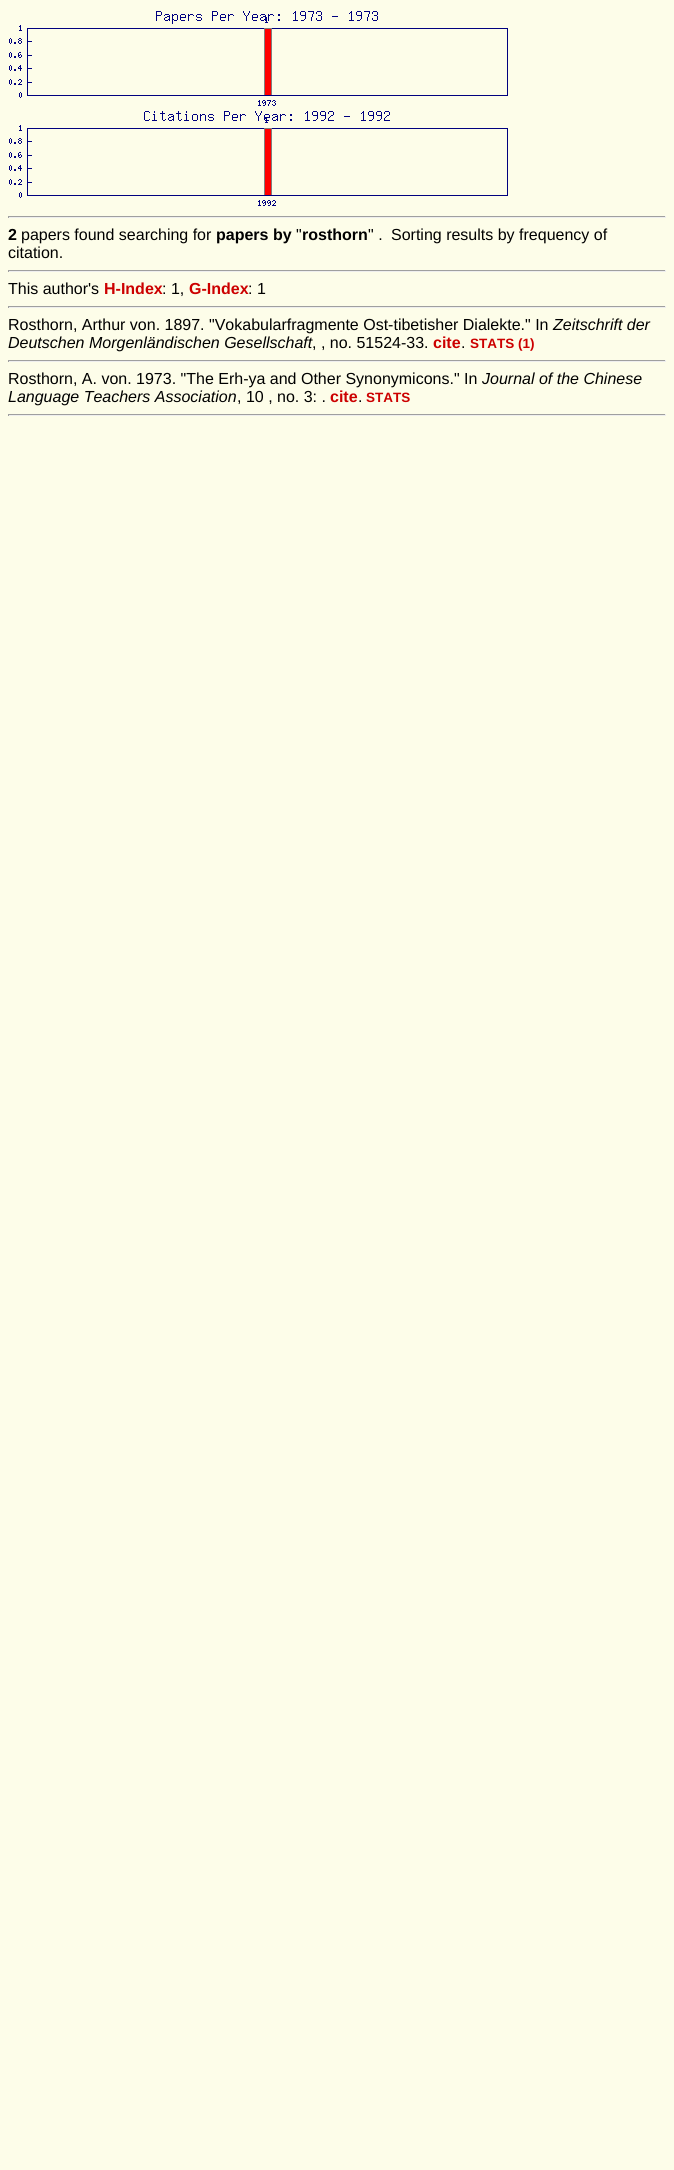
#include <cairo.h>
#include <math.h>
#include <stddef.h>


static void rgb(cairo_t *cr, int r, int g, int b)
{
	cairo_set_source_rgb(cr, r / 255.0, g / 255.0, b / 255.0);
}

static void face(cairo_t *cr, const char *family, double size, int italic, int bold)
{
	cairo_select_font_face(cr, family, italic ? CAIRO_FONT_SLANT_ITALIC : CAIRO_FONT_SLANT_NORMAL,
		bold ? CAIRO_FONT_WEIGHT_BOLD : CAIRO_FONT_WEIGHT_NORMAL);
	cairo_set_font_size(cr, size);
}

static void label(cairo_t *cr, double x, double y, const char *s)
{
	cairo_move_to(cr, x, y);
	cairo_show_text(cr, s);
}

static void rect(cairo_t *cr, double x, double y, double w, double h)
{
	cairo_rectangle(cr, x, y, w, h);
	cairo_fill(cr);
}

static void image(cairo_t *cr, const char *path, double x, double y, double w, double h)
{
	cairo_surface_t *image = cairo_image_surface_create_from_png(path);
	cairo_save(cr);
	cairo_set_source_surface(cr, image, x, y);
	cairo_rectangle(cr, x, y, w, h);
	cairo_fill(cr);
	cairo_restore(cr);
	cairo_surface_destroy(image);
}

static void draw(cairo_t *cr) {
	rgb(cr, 253, 253, 233);
	cairo_paint(cr);
	image(cr, "image0.png", 9, 11, 499, 95);
	image(cr, "image1.png", 9, 111, 499, 95);
	rgb(cr, 159, 159, 159);
	rect(cr, 8, 216, 658, 1);
	rgb(cr, 238, 238, 238);
	rect(cr, 665, 216, 1, 2);
	rect(cr, 8, 217, 658, 1);
	rgb(cr, 159, 159, 159);
	rect(cr, 8, 216, 1, 2);
	face(cr, "Liberation Sans", 16, 0, 1);
	rgb(cr, 0, 0, 0);
	label(cr, 8, 240, "2");
	face(cr, "Liberation Sans", 16, 0, 0);
	label(cr, 21, 240, "papers found searching for");
	face(cr, "Liberation Sans", 16, 0, 1);
	label(cr, 216, 240, "papers by");
	face(cr, "Liberation Sans", 16, 0, 0);
	label(cr, 296, 240, "\"");
	face(cr, "Liberation Sans", 16, 0, 1);
	label(cr, 302, 240, "rosthorn");
	face(cr, "Liberation Sans", 16, 0, 0);
	label(cr, 368, 240, "\" .");
	label(cr, 391, 240, "Sorting results by frequency of");
	label(cr, 8, 258, "citation.");
	rgb(cr, 159, 159, 159);
	rect(cr, 8, 270, 658, 1);
	rgb(cr, 238, 238, 238);
	rect(cr, 665, 270, 1, 2);
	rect(cr, 8, 271, 658, 1);
	rgb(cr, 159, 159, 159);
	rect(cr, 8, 270, 1, 2);
	rgb(cr, 0, 0, 0);
	label(cr, 8, 294, "This author's");
	face(cr, "Liberation Sans", 16, 0, 1);
	rgb(cr, 204, 0, 0);
	label(cr, 104, 294, "H-Index");
	face(cr, "Liberation Sans", 16, 0, 0);
	rgb(cr, 0, 0, 0);
	label(cr, 162, 294, ": 1,");
	face(cr, "Liberation Sans", 16, 0, 1);
	rgb(cr, 204, 0, 0);
	label(cr, 189, 294, "G-Index");
	face(cr, "Liberation Sans", 16, 0, 0);
	rgb(cr, 0, 0, 0);
	label(cr, 248, 294, ": 1");
	rgb(cr, 159, 159, 159);
	rect(cr, 8, 306, 658, 1);
	rgb(cr, 238, 238, 238);
	rect(cr, 665, 306, 1, 2);
	rect(cr, 8, 307, 658, 1);
	rgb(cr, 159, 159, 159);
	rect(cr, 8, 306, 1, 2);
	rgb(cr, 0, 0, 0);
	label(cr, 8, 330, "Rosthorn, Arthur von. 1897. \"Vokabularfragmente Ost-tibetisher Dialekte.\" In");
	face(cr, "Liberation Sans", 16, 1, 0);
	label(cr, 553, 330, "Zeitschrift der");
	label(cr, 8, 348, "Deutschen Morgenländischen Gesellschaft");
	face(cr, "Liberation Sans", 16, 0, 0);
	label(cr, 312, 348, ", , no. 51524-33.");
	face(cr, "Liberation Sans", 16, 0, 1);
	rgb(cr, 204, 0, 0);
	label(cr, 433, 348, "cite");
	face(cr, "Liberation Sans", 16, 0, 0);
	rgb(cr, 0, 0, 0);
	label(cr, 461, 348, ".");
	face(cr, "Liberation Sans", 13.5, 0, 1);
	rgb(cr, 204, 0, 0);
	label(cr, 470, 348, "STATS (1)");
	rgb(cr, 159, 159, 159);
	rect(cr, 8, 360, 658, 1);
	rgb(cr, 238, 238, 238);
	rect(cr, 665, 360, 1, 2);
	rect(cr, 8, 361, 658, 1);
	rgb(cr, 159, 159, 159);
	rect(cr, 8, 360, 1, 2);
	face(cr, "Liberation Sans", 16, 0, 0);
	rgb(cr, 0, 0, 0);
	label(cr, 8, 384, "Rosthorn, A. von. 1973. \"The Erh-ya and Other Synonymicons.\" In");
	face(cr, "Liberation Sans", 16, 1, 0);
	label(cr, 482, 384, "Journal of the Chinese");
	label(cr, 8, 402, "Language Teachers Association");
	face(cr, "Liberation Sans", 16, 0, 0);
	label(cr, 237, 402, ", 10 , no. 3: .");
	face(cr, "Liberation Sans", 16, 0, 1);
	rgb(cr, 204, 0, 0);
	label(cr, 330, 402, "cite");
	face(cr, "Liberation Sans", 16, 0, 0);
	rgb(cr, 0, 0, 0);
	label(cr, 358, 402, ".");
	face(cr, "Liberation Sans", 13.5, 0, 1);
	rgb(cr, 204, 0, 0);
	label(cr, 366, 402, "STATS");
	rgb(cr, 159, 159, 159);
	rect(cr, 8, 414, 658, 1);
	rgb(cr, 238, 238, 238);
	rect(cr, 665, 414, 1, 2);
	rect(cr, 8, 415, 658, 1);
	rgb(cr, 159, 159, 159);
	rect(cr, 8, 414, 1, 2);
}

int main(void) {
	cairo_surface_t *surface = cairo_image_surface_create(CAIRO_FORMAT_RGB24, 674, 2170);
	cairo_t *cr = cairo_create(surface);
	cairo_font_options_t *options = cairo_font_options_create();
	cairo_font_options_set_hint_metrics(options, CAIRO_HINT_METRICS_OFF);
	cairo_font_options_set_hint_style(options, CAIRO_HINT_STYLE_NONE);
	cairo_set_font_options(cr, options);
	cairo_set_miter_limit(cr, 4);
	draw(cr);
	cairo_surface_write_to_png(surface, "render.png");
	cairo_font_options_destroy(options);
	cairo_destroy(cr);
	cairo_surface_destroy(surface);
	return 0;
}
